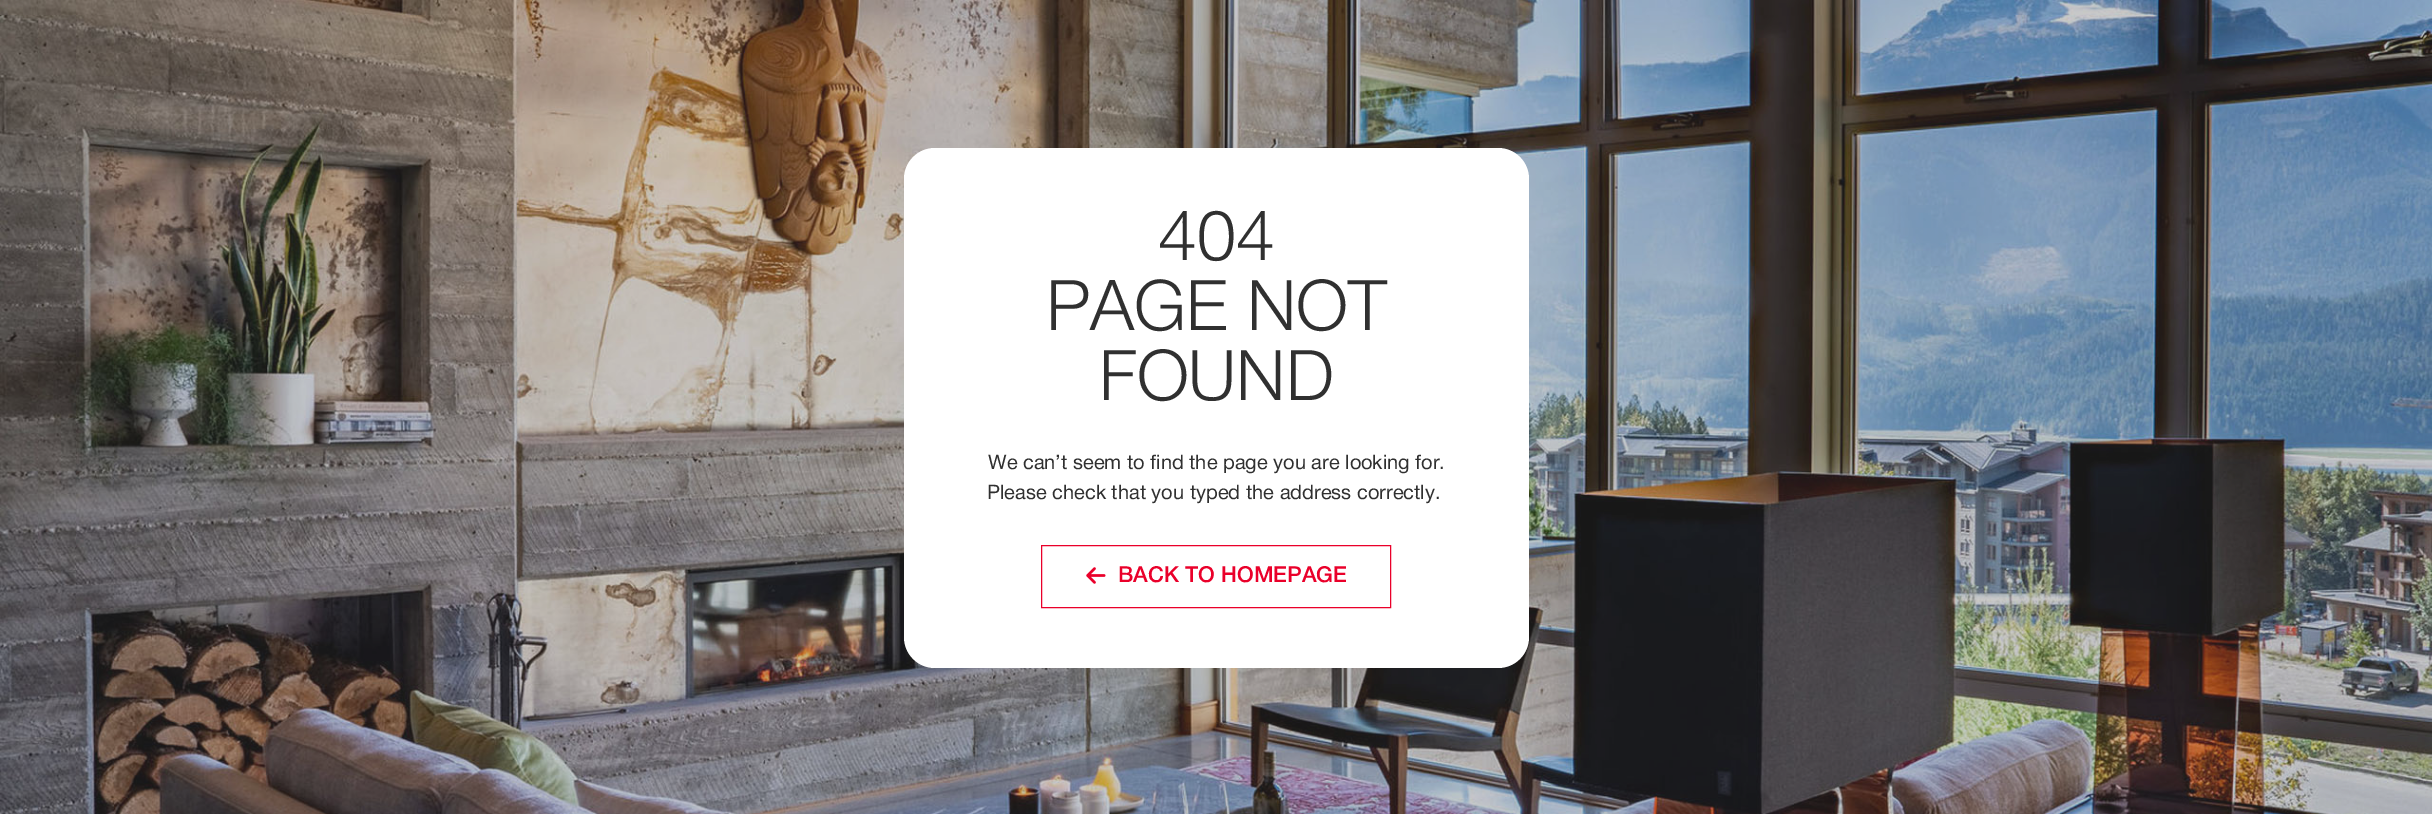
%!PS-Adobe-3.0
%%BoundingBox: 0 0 2432 814
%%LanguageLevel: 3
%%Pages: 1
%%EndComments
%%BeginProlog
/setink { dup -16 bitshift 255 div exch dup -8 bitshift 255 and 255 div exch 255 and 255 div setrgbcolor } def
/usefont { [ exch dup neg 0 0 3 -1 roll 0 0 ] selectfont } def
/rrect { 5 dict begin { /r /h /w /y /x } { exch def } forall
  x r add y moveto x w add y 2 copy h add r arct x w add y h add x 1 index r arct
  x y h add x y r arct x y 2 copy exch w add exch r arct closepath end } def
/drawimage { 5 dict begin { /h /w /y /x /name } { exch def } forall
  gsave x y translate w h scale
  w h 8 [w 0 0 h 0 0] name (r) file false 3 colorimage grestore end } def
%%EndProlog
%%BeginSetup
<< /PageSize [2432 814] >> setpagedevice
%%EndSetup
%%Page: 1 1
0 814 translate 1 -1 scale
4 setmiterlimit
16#FFFFFF setink
0 0 2432 814 rectfill
(img1.raw) 0 0 2432 814 drawimage
904 148 625 520 31 rrect fill
/HelveticaNeue-Light 70 usefont
16#303030 setink
[
    [(404) 1158 260]
    [(PAGE NOT) 1046 330]
    [(FOUND) 1099 400]
] { aload pop moveto show } forall
/HelveticaNeue-Regular 20 usefont
988 469 moveto (We can’t seem to find the page you are looking for.) show
987 499 moveto (Please check that you typed the address correctly.) show
16#EA002A setink
1041.5 545.5 349 62 rectstroke
(img2.raw) 1086 567 20 17 drawimage
/HelveticaNeue-Medium 22 usefont
1118 582 moveto (BACK TO HOMEPAGE) show
showpage
%%EOF
